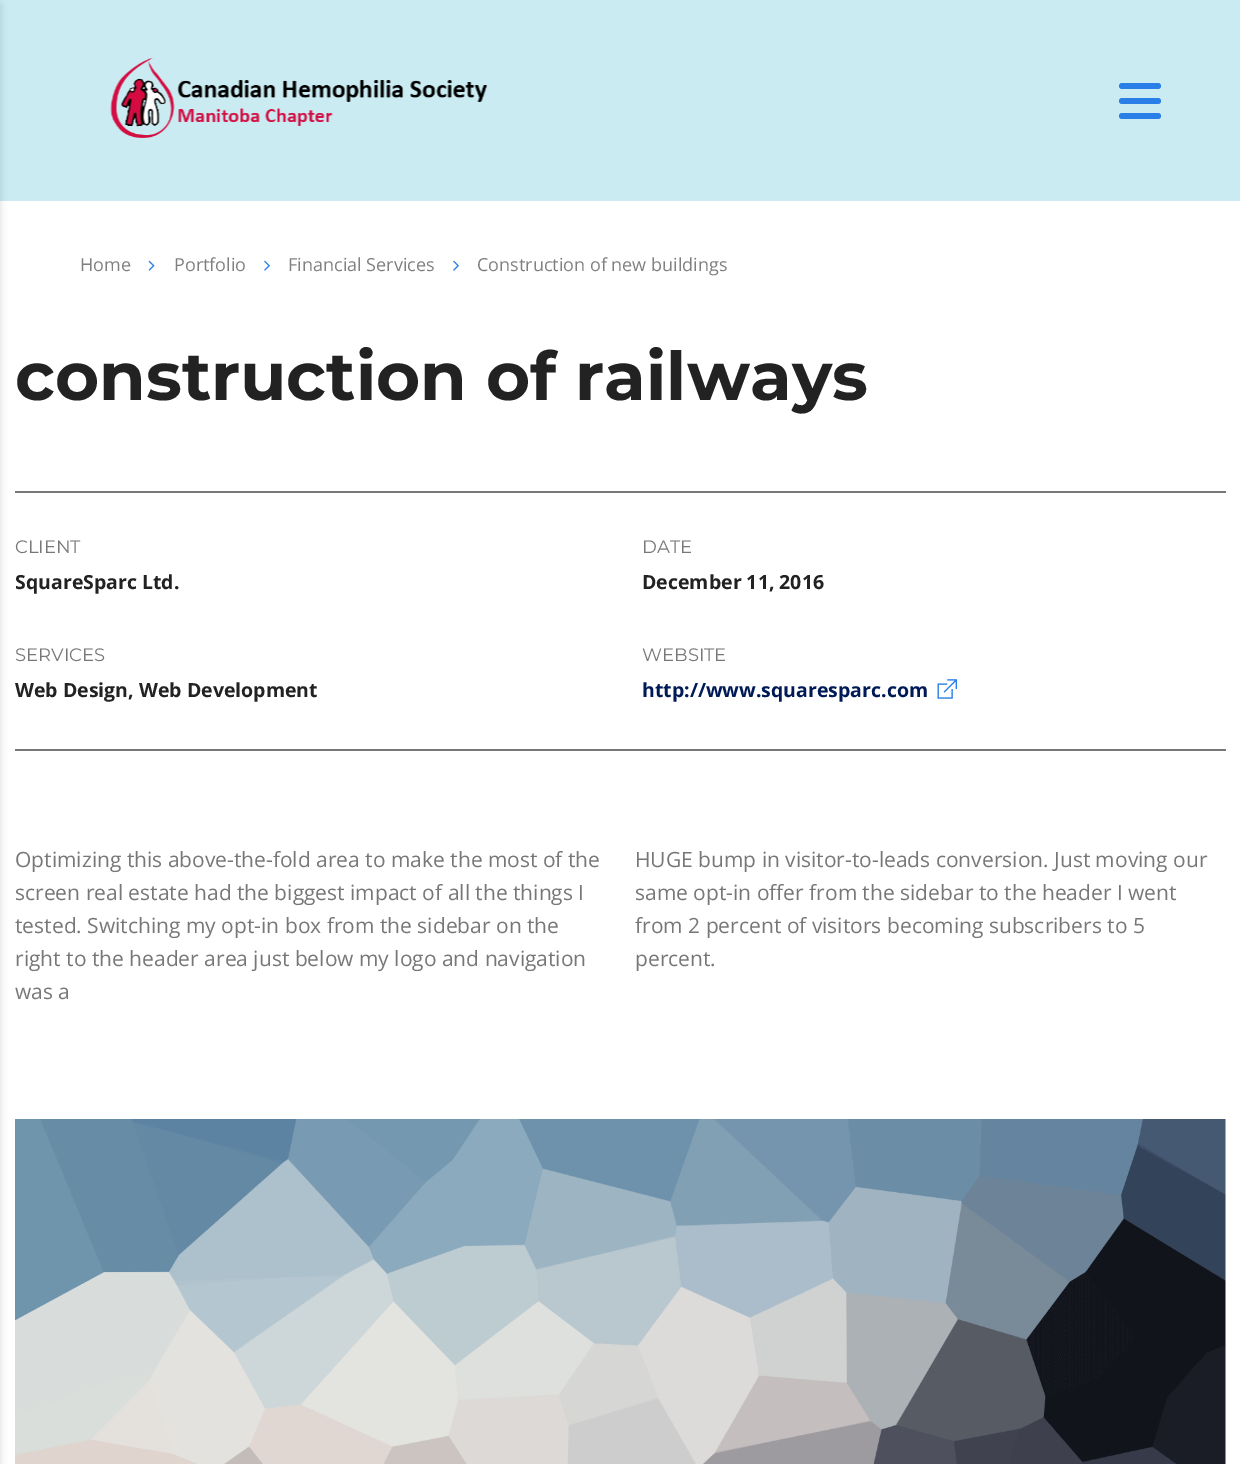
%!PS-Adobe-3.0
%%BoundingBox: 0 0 1240 1464
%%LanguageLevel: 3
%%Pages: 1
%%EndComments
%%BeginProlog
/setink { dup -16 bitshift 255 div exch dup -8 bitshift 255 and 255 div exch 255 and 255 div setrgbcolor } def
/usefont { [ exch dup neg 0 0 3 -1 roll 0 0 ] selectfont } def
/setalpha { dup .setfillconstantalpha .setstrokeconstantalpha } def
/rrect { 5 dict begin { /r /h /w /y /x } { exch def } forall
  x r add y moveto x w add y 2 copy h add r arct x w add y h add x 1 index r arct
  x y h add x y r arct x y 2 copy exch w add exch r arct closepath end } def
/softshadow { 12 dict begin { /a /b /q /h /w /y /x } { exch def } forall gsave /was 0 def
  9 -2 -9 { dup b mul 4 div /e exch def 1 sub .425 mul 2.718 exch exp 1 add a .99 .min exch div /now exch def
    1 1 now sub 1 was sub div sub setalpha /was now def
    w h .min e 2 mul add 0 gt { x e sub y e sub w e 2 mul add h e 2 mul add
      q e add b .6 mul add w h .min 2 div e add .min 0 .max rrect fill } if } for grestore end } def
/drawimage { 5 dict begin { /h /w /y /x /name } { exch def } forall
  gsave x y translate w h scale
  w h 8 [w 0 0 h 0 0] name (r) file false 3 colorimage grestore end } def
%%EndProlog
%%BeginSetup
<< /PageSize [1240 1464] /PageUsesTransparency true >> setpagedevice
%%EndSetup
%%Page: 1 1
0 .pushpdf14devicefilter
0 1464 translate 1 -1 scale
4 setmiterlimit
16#FFFFFF setink
0 0 1240 1464 rectfill
16#CAEBF2 setink
0 0 1240 201 rectfill
(img1.raw) 110 58 378 80 drawimage
16#297EE8 setink
1119 83 42 6 3 rrect fill
1119 98 42 6 3 rrect fill
1119 113 42 6 3 rrect fill
16#000000 setink
-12 5 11 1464 0 4 0.2 softshadow
/OpenSans-Regular 18 usefont
16#808080 setink
80 271 moveto (Home) show
(img2.raw) 148 260 7 11 drawimage
174 271 moveto (Portfolio) show
(img3.raw) 264 260 6 11 drawimage
288 271 moveto (Financial Services) show
(img3.raw) 453 260 6 11 drawimage
477 271 moveto (Construction of new buildings) show
/Montserrat-Bold 67.5 usefont
16#222222 setink
15 400 moveto (construction of railways) show
16#777777 setink
15 491 1211 2 rectfill
15 749 1211 2 rectfill
/Montserrat-Regular 18 usefont
15 553 moveto (CLIENT) show
/OpenSans-Bold 19.5 usefont
16#222222 setink
15 589 moveto (SquareSparc Ltd.) show
/Montserrat-Regular 18 usefont
16#777777 setink
642 553 moveto (DATE) show
/OpenSans-Bold 19.5 usefont
16#222222 setink
642 589 moveto (December 11, 2016) show
/Montserrat-Regular 18 usefont
16#777777 setink
15 661 moveto (SERVICES) show
/OpenSans-Bold 19.5 usefont
16#222222 setink
15 697 moveto (Web Design, Web Development) show
/Montserrat-Regular 18 usefont
16#777777 setink
642 661 moveto (WEBSITE) show
/OpenSans-Bold 19.5 usefont
16#001A57 setink
642 697 moveto (http://www.squaresparc.com) show
(img4.raw) 937 679 20 20 drawimage
/OpenSans-Regular 21 usefont
16#777777 setink
[
    [(Optimizing this above-the-fold area to make the most of the) 15 867]
    [(screen real estate had the biggest impact of all the things I) 15 900]
    [(tested. Switching my opt-in box from the sidebar on the) 15 933]
    [(right to the header area just below my logo and navigation) 15 966]
    [(was a) 15 999]
    [(HUGE bump in visitor-to-leads conversion. Just moving our) 635 867]
    [(same opt-in offer from the sidebar to the header I went) 635 900]
    [(from 2 percent of visitors becoming subscribers to 5) 635 933]
    [(percent.) 635 966]
] { aload pop moveto show } forall
(img5.raw) 15 1119 1211 345 drawimage
.poppdf14devicefilter showpage
%%EOF
